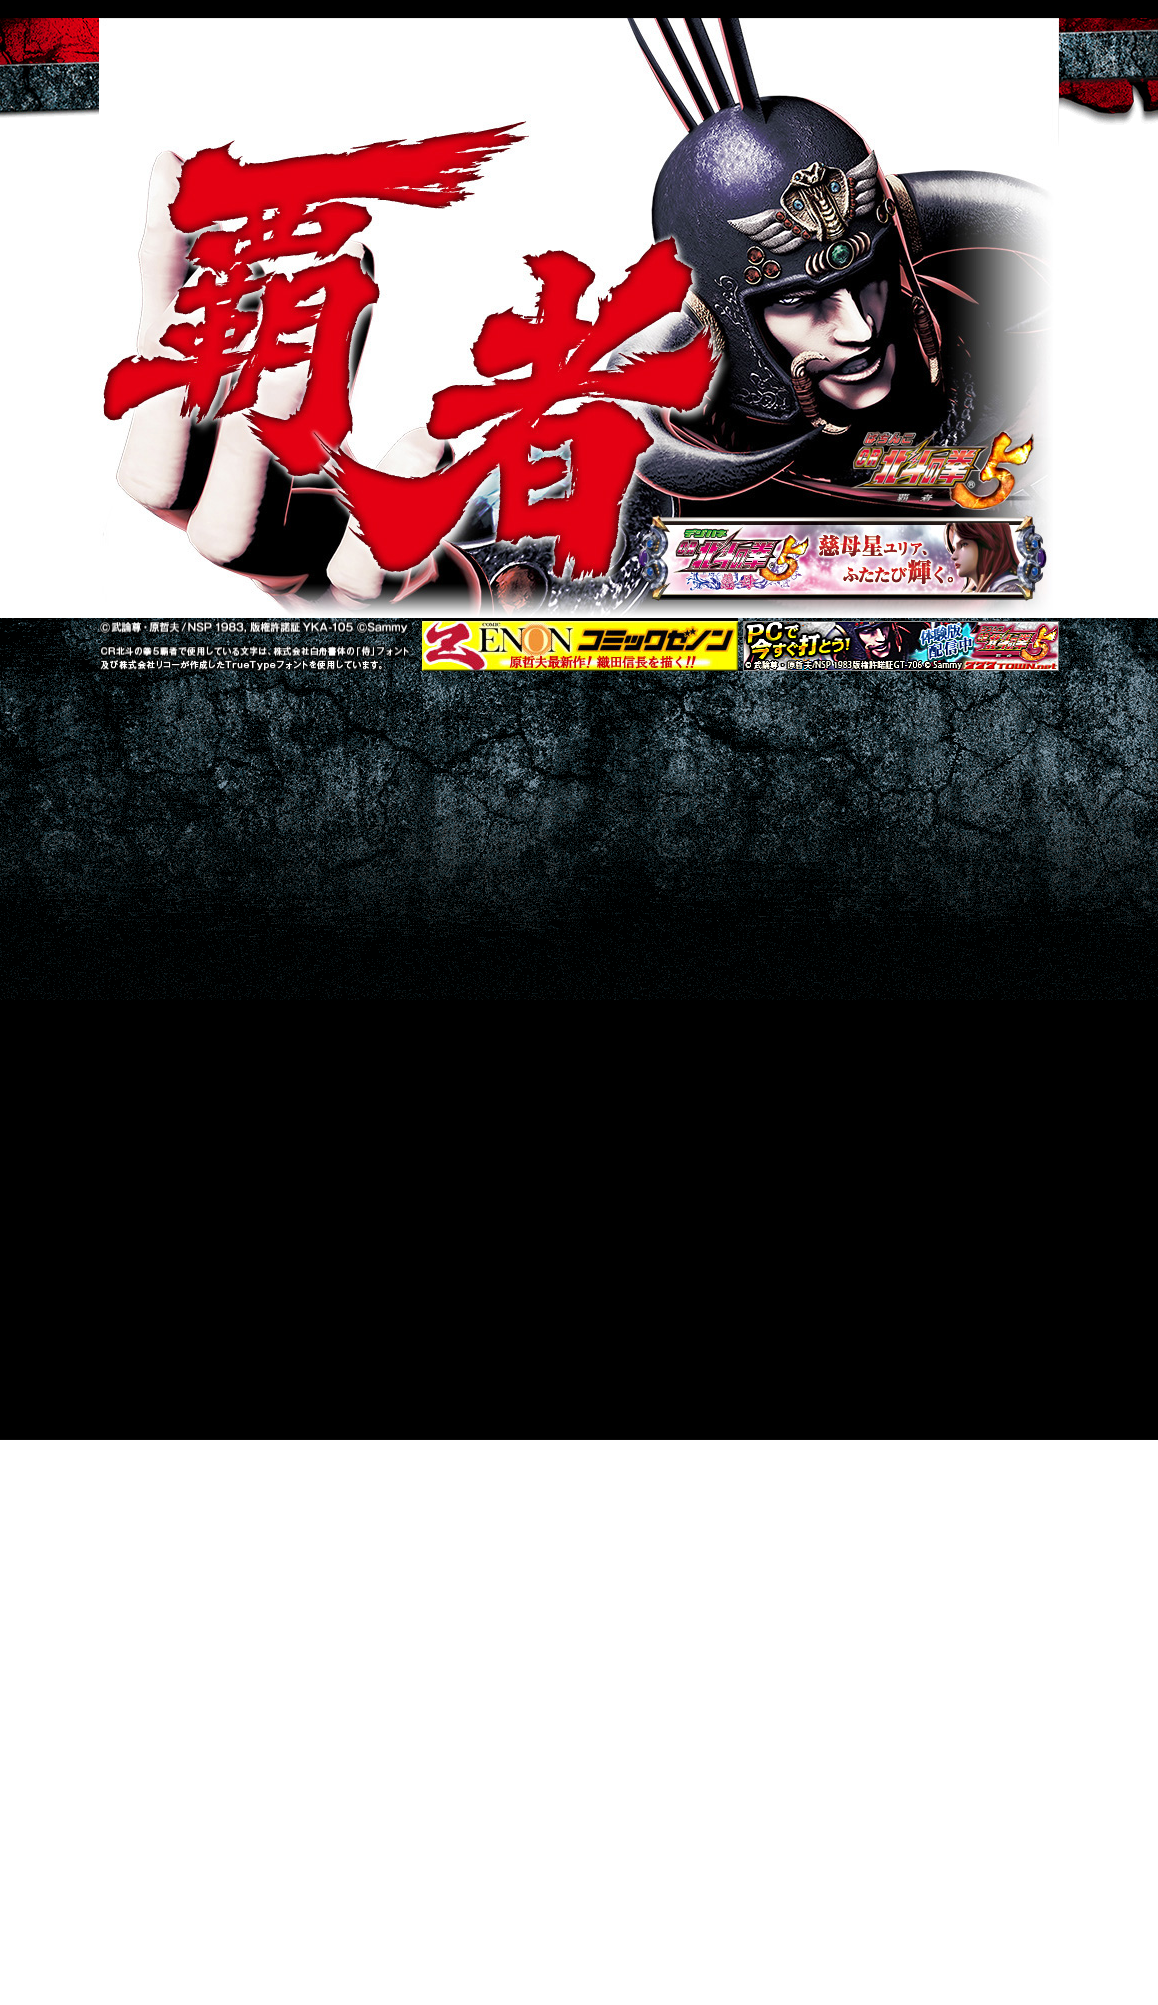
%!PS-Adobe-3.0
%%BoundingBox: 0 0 1158 2005
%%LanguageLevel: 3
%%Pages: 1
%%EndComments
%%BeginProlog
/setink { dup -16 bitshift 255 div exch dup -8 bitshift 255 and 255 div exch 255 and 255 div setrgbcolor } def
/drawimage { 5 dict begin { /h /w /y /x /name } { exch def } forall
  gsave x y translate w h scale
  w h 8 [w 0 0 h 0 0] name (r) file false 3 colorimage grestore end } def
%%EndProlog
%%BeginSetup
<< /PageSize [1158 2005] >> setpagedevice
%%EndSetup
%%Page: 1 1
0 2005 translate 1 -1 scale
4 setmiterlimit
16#FFFFFF setink
0 0 1158 2005 rectfill
(img1.raw) 0 0 1158 1440 drawimage
(img2.raw) 0 18 1158 600 drawimage
(img3.raw) 99 18 960 600 drawimage
(img4.raw) 99 620 313 54 drawimage
(img5.raw) 422 618 316 53 drawimage
(img6.raw) 743 621 316 50 drawimage
showpage
%%EOF
